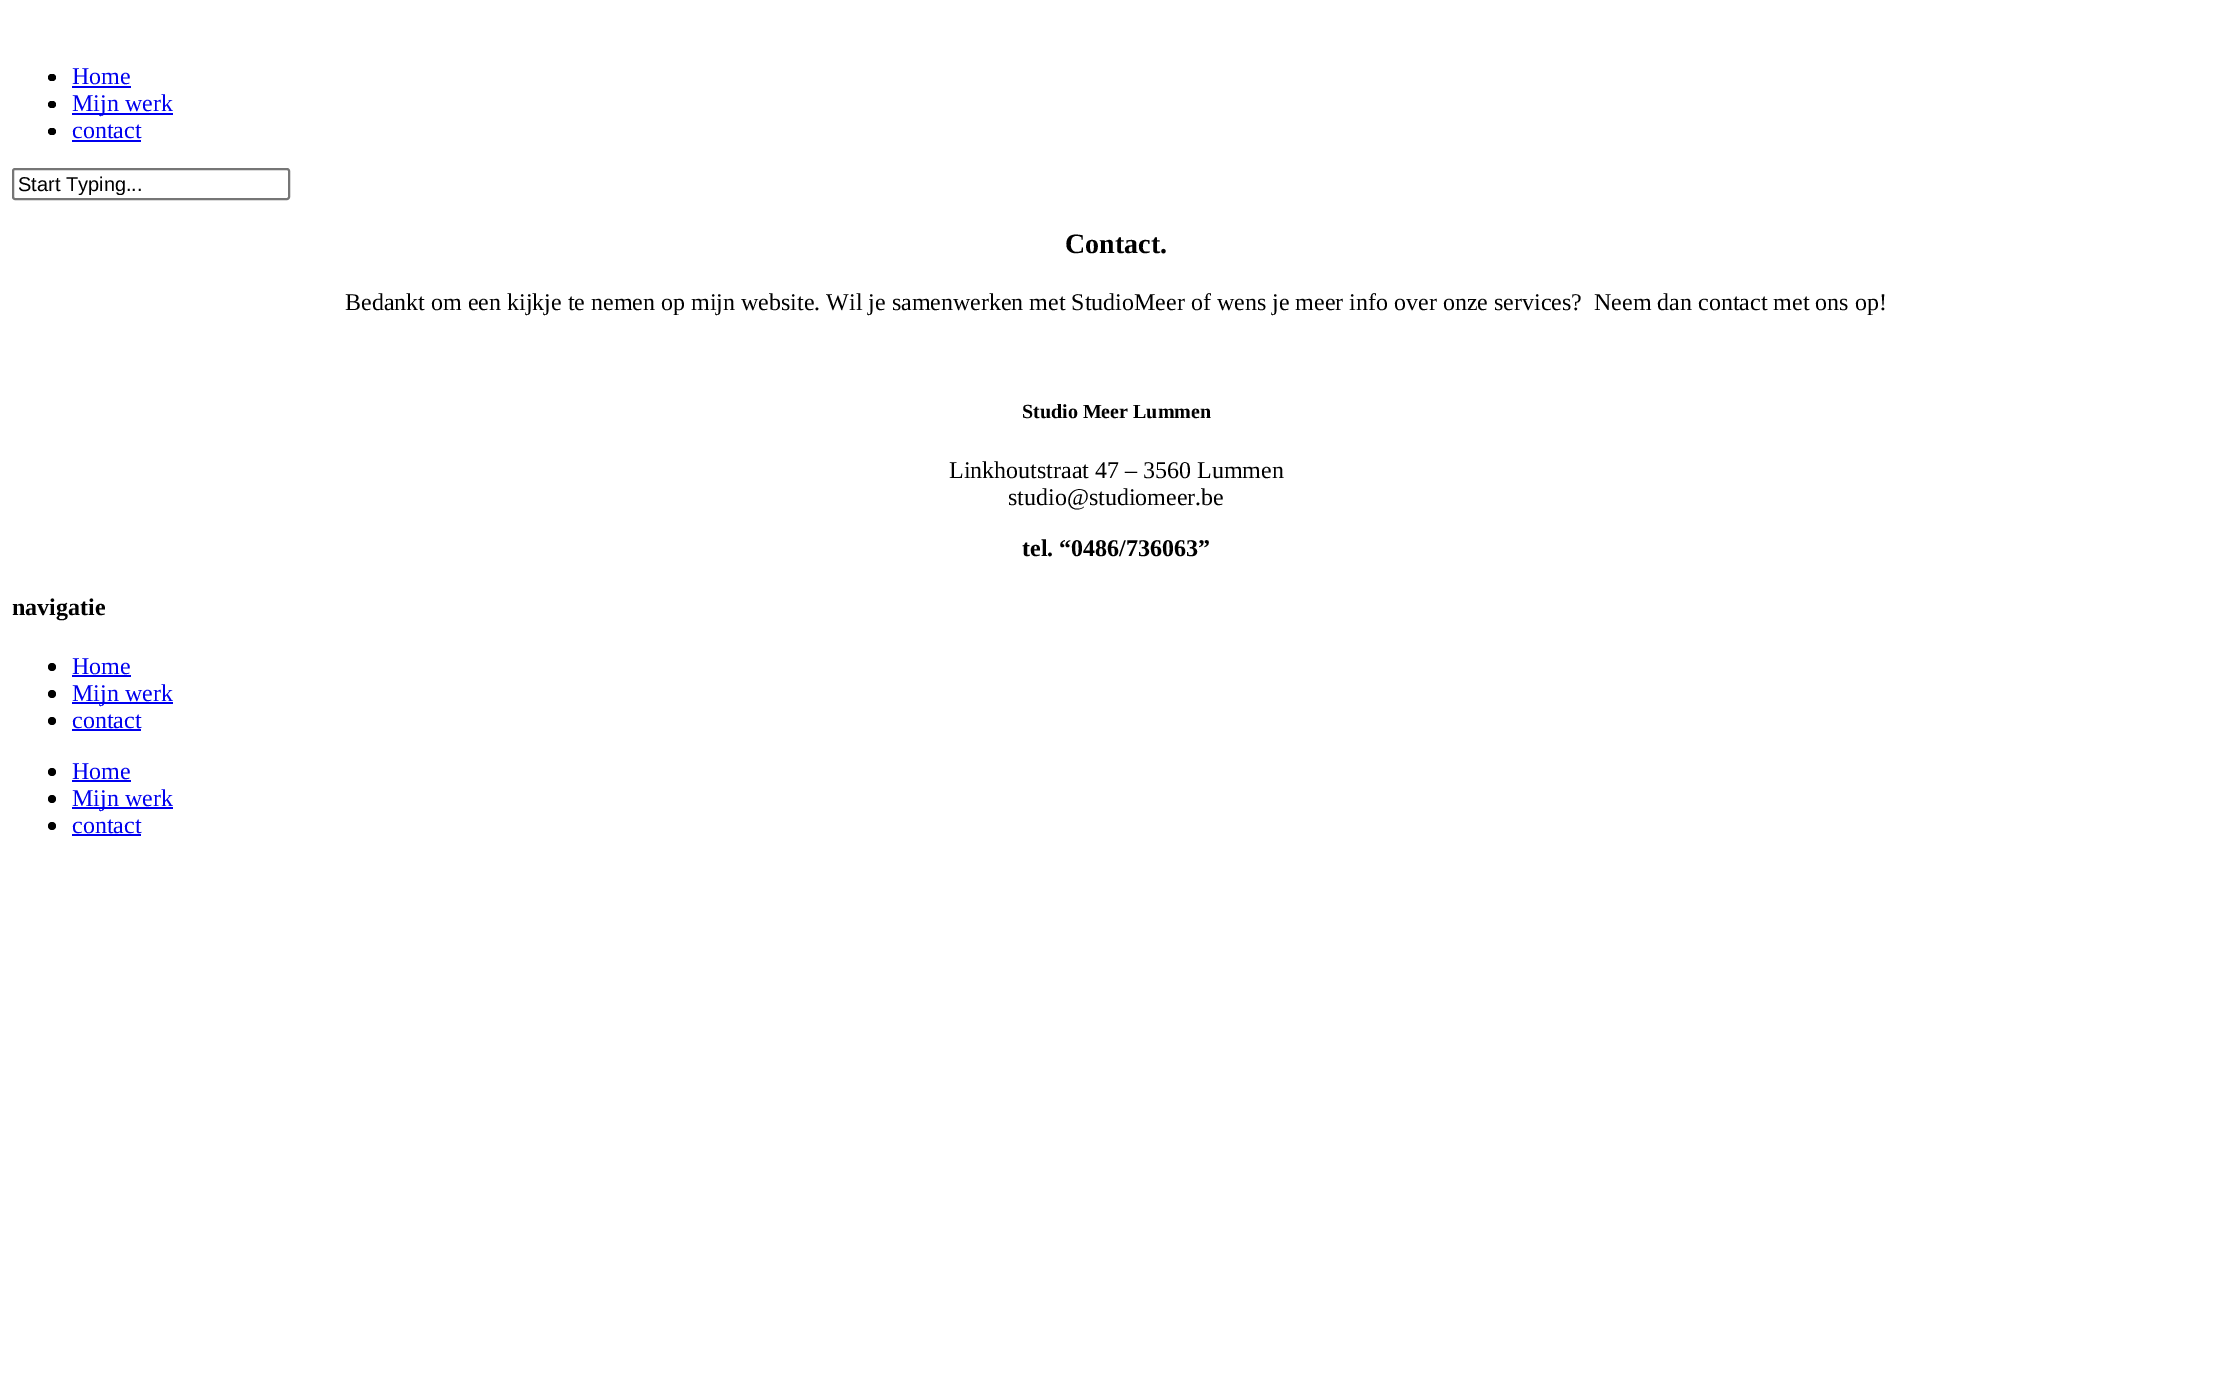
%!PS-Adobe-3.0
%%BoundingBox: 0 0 2231 1380
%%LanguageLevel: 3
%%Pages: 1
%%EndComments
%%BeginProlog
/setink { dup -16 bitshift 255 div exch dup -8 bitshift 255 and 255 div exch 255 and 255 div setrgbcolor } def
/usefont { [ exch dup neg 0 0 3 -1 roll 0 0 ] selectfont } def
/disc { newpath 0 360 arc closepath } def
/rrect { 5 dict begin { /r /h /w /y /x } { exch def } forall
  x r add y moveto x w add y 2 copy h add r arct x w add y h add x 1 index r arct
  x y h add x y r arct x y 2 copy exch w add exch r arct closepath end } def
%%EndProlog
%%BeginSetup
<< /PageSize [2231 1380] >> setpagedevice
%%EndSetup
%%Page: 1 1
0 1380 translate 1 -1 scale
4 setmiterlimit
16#FFFFFF setink
0 0 2231 1380 rectfill
16#000000 setink
48 74 8 7 3.5 rrect fill
/LiberationSerif-Regular 24 usefont
16#0000EE setink
72 84 moveto (Home) show
72 86 59 2 rectfill
16#000000 setink
48 101 8 7 3.5 rrect fill
16#0000EE setink
72 113 101 2 rectfill
72 111 moveto (Mijn werk) show
16#000000 setink
48 128 8 7 3.5 rrect fill
16#0000EE setink
72 138 moveto (contact) show
72 140 69 2 rectfill
16#767676 setink
2 setlinewidth
13 169 276 30 2 rrect stroke
gsave
18 173 266 22 rectclip
/LiberationSans-Regular 20 usefont
16#000000 setink
18 191 moveto (Start Typing...) show
grestore
/LiberationSerif-Bold 28 usefont
16#000000 setink
1065 253 moveto (Contact.) show
/LiberationSerif-Regular 24 usefont
345 310 moveto (Bedankt om een kijkje te nemen op mijn website. Wil je samenwerken met StudioMeer of wens je meer info over onze services?  Neem dan contact met ons op!) show
/LiberationSerif-Bold 20 usefont
1022 418 moveto (Studio Meer Lummen) show
/LiberationSerif-Regular 24 usefont
949 478 moveto (Linkhoutstraat 47 – 3560 Lummen) show
1008 505 moveto (studio@studiomeer.be) show
/LiberationSerif-Bold 24 usefont
1022 556 moveto (tel. “0486/736063”) show
12 615 moveto (navigatie) show
52 667 4 disc fill
/LiberationSerif-Regular 24 usefont
16#0000EE setink
72 674 moveto (Home) show
72 675 59 2 rectfill
16#000000 setink
52 694 4 disc fill
16#0000EE setink
72 702 101 2 rectfill
72 701 moveto (Mijn werk) show
16#000000 setink
52 721 4 disc fill
16#0000EE setink
72 728 moveto (contact) show
72 729 69 2 rectfill
16#000000 setink
52 772 4 disc fill
16#0000EE setink
72 779 moveto (Home) show
72 780 59 2 rectfill
16#000000 setink
52 799 4 disc fill
16#0000EE setink
72 807 101 2 rectfill
72 806 moveto (Mijn werk) show
16#000000 setink
52 826 4 disc fill
16#0000EE setink
72 833 moveto (contact) show
72 834 69 2 rectfill
showpage
%%EOF
